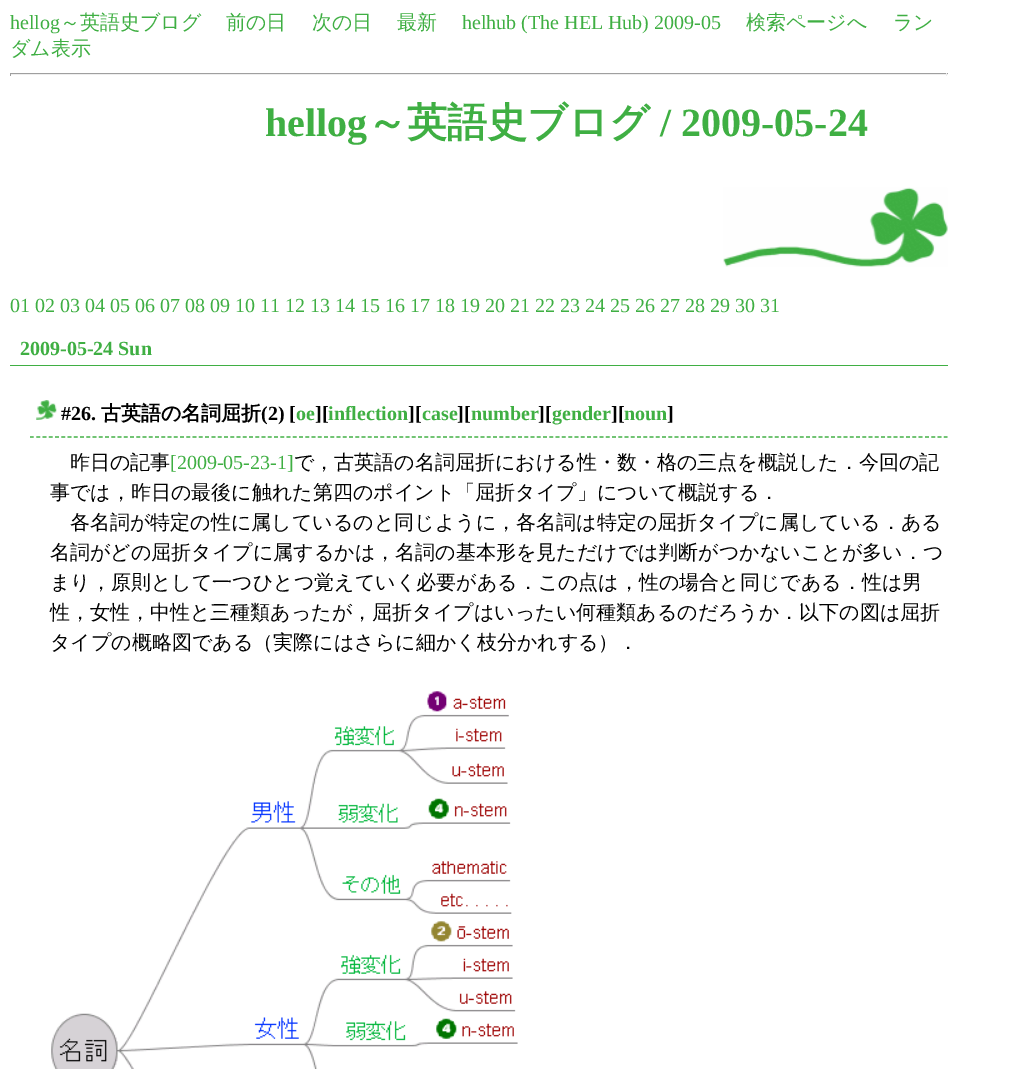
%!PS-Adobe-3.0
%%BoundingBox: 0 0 1030 1069
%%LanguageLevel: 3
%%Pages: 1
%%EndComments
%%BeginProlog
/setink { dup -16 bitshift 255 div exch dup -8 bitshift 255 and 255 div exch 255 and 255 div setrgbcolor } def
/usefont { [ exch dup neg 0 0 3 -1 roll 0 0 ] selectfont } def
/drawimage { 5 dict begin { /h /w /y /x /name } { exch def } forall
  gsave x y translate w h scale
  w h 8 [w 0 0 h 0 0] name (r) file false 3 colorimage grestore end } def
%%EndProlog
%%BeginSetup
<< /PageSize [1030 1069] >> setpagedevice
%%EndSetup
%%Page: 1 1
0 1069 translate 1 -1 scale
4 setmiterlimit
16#FFFFFF setink
0 0 1030 1069 rectfill
/LiberationSerif-Regular 20 usefont
16#3FAF43 setink
10 29 moveto (hellog) show
/WenQuanYiZenHei-Medium 20 usefont
[
    [(～英語史ブログ) 60 29]
    [(前の日) 226 29]
    [(次の日) 312 29]
    [(最新) 397 29]
] { aload pop moveto show } forall
/LiberationSerif-Regular 20 usefont
462 29 moveto (helhub \(The HEL Hub\) 2009-05) show
/WenQuanYiZenHei-Medium 20 usefont
[
    [(検索ページへ) 746 29]
    [(ラン) 893 29]
    [(ダム表示) 10 55]
] { aload pop moveto show } forall
[
    [10 73 938 1 16#9F9F9F]
    [946 73 1 3 16#EEEEEE]
    [10 74 938 1 16#EEEEEE]
    [10 73 1 3 16#9F9F9F]
] { aload pop setink rectfill } forall
(img1.raw) 723 187 225 80 drawimage
/LiberationSerif-Bold 40 usefont
16#3FAF43 setink
265 136 moveto (hellog) show
/WenQuanYiZenHei-Bold 40 usefont
367 136 moveto (～英語史ブログ) show
/LiberationSerif-Bold 40 usefont
660 136 moveto (/ 2009-05-24) show
/LiberationSerif-Regular 20 usefont
10 312 moveto (01 02 03 04 05 06 07 08 09 10 11 12 13 14 15 16 17 18 19 20 21 22 23 24 25 26 27 28 29 30 31) show
10 365 938 1 rectfill
/LiberationSerif-Bold 20 usefont
20 355 moveto (2009-05-24 Sun) show
1.2 setlinewidth
[3.75 2.51] 0 setdash
30 437 moveto 947.5 437 lineto stroke
(img2.raw) 36 400 21 20 drawimage
16#000000 setink
61 420 moveto (#26.) show
/WenQuanYiZenHei-Bold 20 usefont
101 420 moveto (古英語の名詞屈折) show
/LiberationSerif-Bold 20 usefont
261 420 moveto (\(2\) [) show
16#3FAF43 setink
296 420 moveto (oe) show
16#000000 setink
315 420 moveto (][) show
16#3FAF43 setink
328 420 moveto (inflection) show
16#000000 setink
408 420 moveto (][) show
16#3FAF43 setink
422 420 moveto (case) show
16#000000 setink
457 420 moveto (][) show
16#3FAF43 setink
471 420 moveto (number) show
16#000000 setink
538 420 moveto (][) show
16#3FAF43 setink
552 420 moveto (gender) show
16#000000 setink
611 420 moveto (][) show
16#3FAF43 setink
624 420 moveto (noun) show
16#000000 setink
667 420 moveto (]) show
/WenQuanYiZenHei-Medium 20 usefont
70 469 moveto (昨日の記事) show
/LiberationSerif-Regular 20 usefont
16#3FAF43 setink
170 469 moveto ([2009-05-23-1]) show
/WenQuanYiZenHei-Medium 20 usefont
16#000000 setink
[
    [(で，古英語の名詞屈折における性・数・格の三点を概説した．今回の記) 294 469]
    [(事では，昨日の最後に触れた第四のポイント「屈折タイプ」について概説する．) 50 499]
    [(各名詞が特定の性に属しているのと同じように，各名詞は特定の屈折タイプに属している．ある) 70 529]
    [(名詞がどの屈折タイプに属するかは，名詞の基本形を見ただけでは判断がつかないことが多い．つ) 50 559]
    [(まり，原則として一つひとつ覚えていく必要がある．この点は，性の場合と同じである．性は男) 50 589]
    [(性，女性，中性と三種類あったが，屈折タイプはいったい何種類あるのだろうか．以下の図は屈折) 50 619]
    [(タイプの概略図である（実際にはさらに細かく枝分かれする）．) 50 649]
] { aload pop moveto show } forall
(img3.raw) 51 691 467 378 drawimage
showpage
%%EOF
